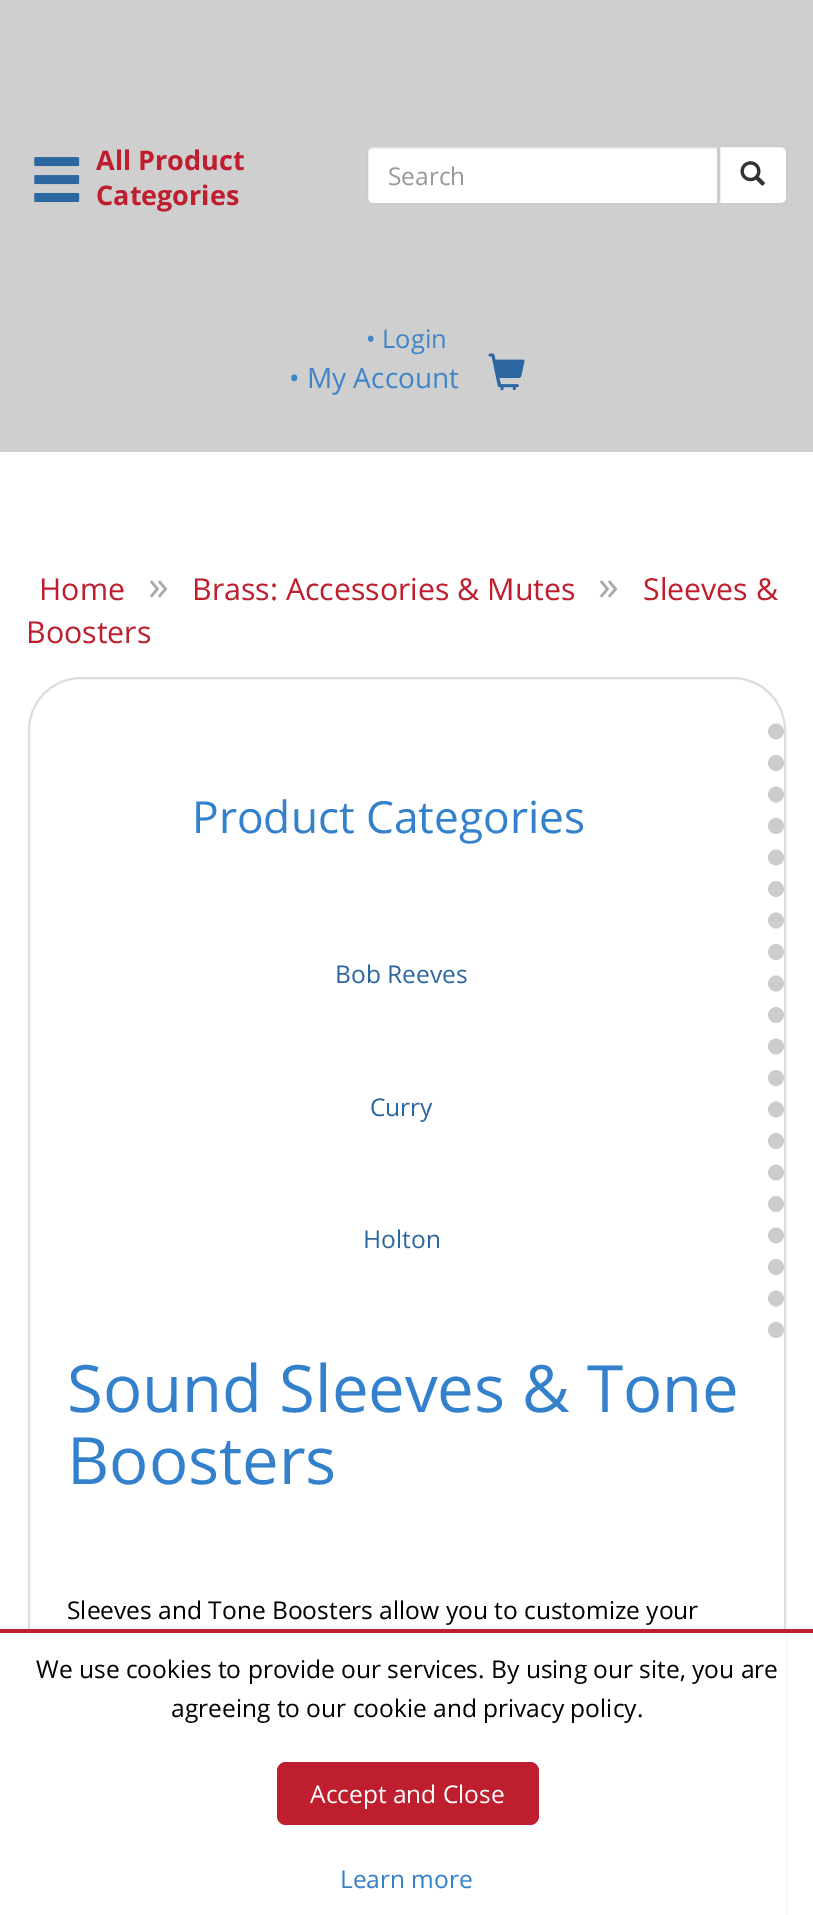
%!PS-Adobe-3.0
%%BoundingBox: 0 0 813 1915
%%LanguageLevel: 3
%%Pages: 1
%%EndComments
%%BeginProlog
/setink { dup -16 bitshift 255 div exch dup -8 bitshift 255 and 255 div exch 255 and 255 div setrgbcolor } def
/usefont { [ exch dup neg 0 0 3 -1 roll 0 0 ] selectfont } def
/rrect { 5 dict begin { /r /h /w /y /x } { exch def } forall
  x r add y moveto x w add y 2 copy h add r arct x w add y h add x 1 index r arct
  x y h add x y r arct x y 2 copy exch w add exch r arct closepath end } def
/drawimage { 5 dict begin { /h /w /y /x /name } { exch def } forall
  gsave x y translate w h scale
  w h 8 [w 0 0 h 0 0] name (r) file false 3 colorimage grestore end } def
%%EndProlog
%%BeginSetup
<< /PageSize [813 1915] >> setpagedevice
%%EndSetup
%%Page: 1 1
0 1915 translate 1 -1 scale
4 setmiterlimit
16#FFFFFF setink
0 0 813 1915 rectfill
16#CFCFCF setink
0 0 813 452 rectfill
(img1.raw) 34 157 46 45 drawimage
/OpenSans-Bold 27 usefont
16#BF1E2E setink
96 170 moveto (All Product) show
96 205 moveto (Categories) show
16#FFFFFF setink
373 145 moveto 719 145 lineto 719 205 lineto 373 205 lineto 369 205 366 202 366 198 curveto 366 152 lineto 366 148 369 145 373 145 curveto closepath fill
16#ECECEC setink
373 149 moveto 718 149 lineto 718 147 lineto 373 147 lineto 369 147 368 151 368 154 curveto 368 151 370 149 373 149 curveto closepath fill
16#CCCCCC setink
2 setlinewidth
373 146 moveto 718 146 lineto 718 204 lineto 373 204 lineto 369.5 204 367 201.5 367 198 curveto 367 152 lineto 367 148.5 369.5 146 373 146 curveto closepath stroke
/OpenSans-Regular 24.5 usefont
16#999999 setink
388 185 moveto (Search) show
16#FFFFFF setink
719 146 moveto 781 146 lineto 784.5 146 787 148.5 787 152 curveto 787 198 lineto 787 201.5 784.5 204 781 204 curveto 719 204 lineto closepath gsave fill grestore
16#CCCCCC setink
stroke
(img2.raw) 740 161 25 25 drawimage
/OpenSans-Regular 25.5 usefont
16#3F84C9 setink
366 348 moveto (• Login) show
/OpenSans-Regular 28 usefont
289 388 moveto (• My Account) show
(img3.raw) 488 353 37 38 drawimage
/OpenSans-Regular 30.3 usefont
16#BF1E2E setink
39 600 moveto (Home) show
/OpenSans-Regular 42 usefont
16#AAAAAA setink
148 600 moveto (») show
/OpenSans-Regular 30.3 usefont
16#BF1E2E setink
192 600 moveto (Brass: Accessories & Mutes) show
/OpenSans-Regular 42 usefont
16#AAAAAA setink
598 600 moveto (») show
/OpenSans-Regular 30.3 usefont
16#BF1E2E setink
643 600 moveto (Sleeves &) show
26 643 moveto (Boosters) show
16#DDDDDD setink
29 678 756 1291 52 rrect stroke
16#CCCCCC setink
15.8 setlinewidth
1 setlinecap
[0 31.5] 0 setdash
776 731.5 moveto 776 1351 lineto stroke
/OpenSans-Regular 44.25 usefont
16#3380CC setink
192 833 moveto (Product Categories) show
/OpenSans-Regular 24.5 usefont
16#2C67A1 setink
[
    [(Bob Reeves) 335 983]
    [(Curry) 370 1116]
    [(Holton) 363 1248]
] { aload pop moveto show } forall
/OpenSans-Regular 65.25 usefont
16#3380CC setink
67 1412 moveto (Sound Sleeves & Tone) show
67 1484 moveto (Boosters) show
/OpenSans-Regular 24.5 usefont
16#000000 setink
67 1619 moveto (Sleeves and Tone Boosters allow you to customize your) show
16#FFFFFF setink
28 1633 758 282 rectfill
16#BF1E2E setink
0 1629 813 4 rectfill
16#000000 setink
36 1678 moveto (We use cookies to provide our services. By using our site, you are) show
171 1717 moveto (agreeing to our cookie and privacy policy.) show
16#BF1E2E setink
277 1762 262 63 9 rrect fill
16#FFFFFF setink
310 1803 moveto (Accept and Close) show
16#3380CC setink
340 1888 moveto (Learn more) show
showpage
%%EOF
